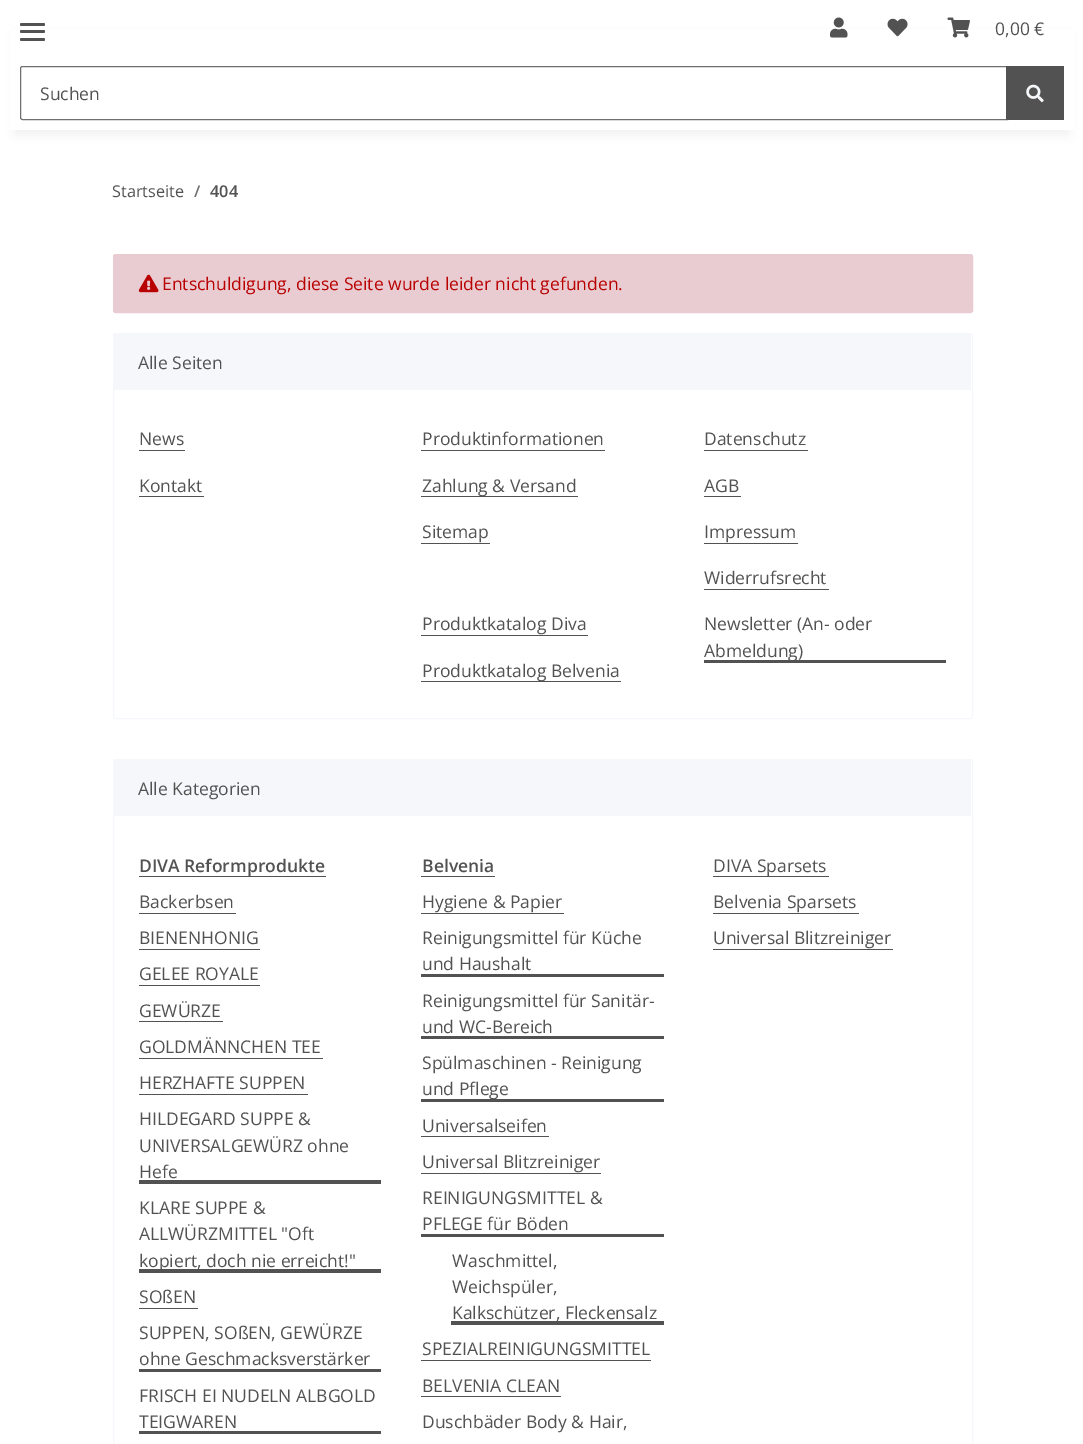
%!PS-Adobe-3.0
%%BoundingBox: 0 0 1083 1444
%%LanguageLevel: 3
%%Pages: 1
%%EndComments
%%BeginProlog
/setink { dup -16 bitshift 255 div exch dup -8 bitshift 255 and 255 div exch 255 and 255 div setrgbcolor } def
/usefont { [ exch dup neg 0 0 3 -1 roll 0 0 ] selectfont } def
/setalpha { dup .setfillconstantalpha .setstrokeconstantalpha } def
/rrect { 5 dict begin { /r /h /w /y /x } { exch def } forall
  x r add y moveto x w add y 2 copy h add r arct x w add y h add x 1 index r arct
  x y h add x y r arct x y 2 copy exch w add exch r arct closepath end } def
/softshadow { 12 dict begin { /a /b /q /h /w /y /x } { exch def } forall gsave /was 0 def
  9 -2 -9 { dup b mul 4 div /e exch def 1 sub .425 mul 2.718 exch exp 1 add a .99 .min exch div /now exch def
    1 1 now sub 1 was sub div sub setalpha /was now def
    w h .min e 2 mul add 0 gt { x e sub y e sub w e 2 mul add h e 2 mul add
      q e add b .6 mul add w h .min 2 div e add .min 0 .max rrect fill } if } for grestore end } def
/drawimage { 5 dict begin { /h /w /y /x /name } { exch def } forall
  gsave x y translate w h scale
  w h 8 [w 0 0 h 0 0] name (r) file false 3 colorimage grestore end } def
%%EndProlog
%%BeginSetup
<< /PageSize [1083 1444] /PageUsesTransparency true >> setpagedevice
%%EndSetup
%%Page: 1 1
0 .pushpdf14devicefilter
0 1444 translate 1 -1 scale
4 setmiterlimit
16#FFFFFF setink
0 0 1083 1444 rectfill
16#000000 setink
15 35 1054 100 0 5.5 0.06 softshadow
16#FFFFFF setink
10 30 1064 100 rectfill
16#525252 setink
20 30 25 3 1.5 rrect fill
20 23 25 3 1.5 rrect fill
20 38 25 3 1.5 rrect fill
(img1.raw) 830 17 18 21 drawimage
(img2.raw) 887 18 21 19 drawimage
(img3.raw) 947 17 23 21 drawimage
/OpenSans-Regular 17.5 usefont
995 35 moveto (0,00 €) show
16#707070 setink
22.5 66.5 moveto 1007.5 66.5 lineto 1007.5 119.5 lineto 22.5 119.5 lineto 21.5 119.5 20.5 118.5 20.5 117.5 curveto 20.5 68.5 lineto 20.5 67.5 21.5 66.5 22.5 66.5 curveto closepath stroke
16#525252 setink
40 100 moveto (Suchen) show
1006 66 58 54 rectfill
(img4.raw) 1026 84 18 19 drawimage
/OpenSans-Regular 16.25 usefont
112 197 moveto (Startseite) show
/OpenSans-SemiBold 16.25 usefont
16#707070 setink
194 197 moveto (/) show
16#525252 setink
210 197 moveto (404) show
16#E8CCD2 setink
113.5 254.5 859 58 2 rrect gsave fill grestore
stroke
(img5.raw) 138 274 21 19 drawimage
/OpenSans-Regular 17.5 usefont
16#B90000 setink
162 290 moveto (Entschuldigung, diese Seite wurde leider nicht gefunden.) show
16#F5F7FA setink
113.5 333.5 859 385 2 rrect stroke
115 334 moveto 970 334 lineto 970.5 334 971 334.5 971 335 curveto 971 390 lineto 114 390 lineto 114 335 lineto 114 334.5 114.5 334 115 334 curveto closepath fill
16#525252 setink
138 369 moveto (Alle Seiten) show
139 445 moveto (News) show
139 450 46 1 rectfill
139 492 moveto (Kontakt) show
139 496 65 1 rectfill
422 445 moveto (Produktinformationen) show
421 450 184 1 rectfill
422 492 moveto (Zahlung & Versand) show
421 496 157 1 rectfill
422 538 moveto (Sitemap) show
421 543 69 1 rectfill
704 445 moveto (Datenschutz) show
704 450 104 1 rectfill
704 492 moveto (AGB) show
704 496 37 1 rectfill
704 538 moveto (Impressum) show
704 543 94 1 rectfill
704 584 moveto (Widerrufsrecht) show
704 589 125 1 rectfill
422 630 moveto (Produktkatalog Diva) show
421 635 167 1 rectfill
422 677 moveto (Produktkatalog Belvenia) show
421 681 200 1 rectfill
704 630 moveto (Newsletter \(An- oder) show
704 657 moveto (Abmeldung\)) show
704 660 242 3 rectfill
16#F5F7FA setink
113.5 759.5 859 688 2 rrect stroke
115 760 moveto 970 760 lineto 970.5 760 971 760.5 971 761 curveto 971 816 lineto 114 816 lineto 114 761 lineto 114 760.5 114.5 760 115 760 curveto closepath fill
16#525252 setink
138 795 moveto (Alle Kategorien) show
/OpenSans-SemiBold 17.5 usefont
139 872 moveto (DIVA Reformprodukte) show
139 876 187 1 rectfill
/OpenSans-Regular 17.5 usefont
139 908 moveto (Backerbsen) show
139 913 97 1 rectfill
139 944 moveto (BIENENHONIG) show
139 949 121 1 rectfill
139 980 moveto (GELEE ROYALE) show
139 985 121 1 rectfill
139 1017 moveto (GEWÜRZE) show
139 1021 84 1 rectfill
139 1053 moveto (GOLDMÄNNCHEN TEE) show
139 1058 184 1 rectfill
139 1089 moveto (HERZHAFTE SUPPEN) show
139 1094 169 1 rectfill
[
    [(HILDEGARD SUPPE &) 139 1125]
    [(UNIVERSALGEWÜRZ ohne) 139 1152]
    [(Hefe) 139 1178]
] { aload pop moveto show } forall
139 1180 242 4 rectfill
[
    [(KLARE SUPPE &) 139 1214]
    [(ALLWÜRZMITTEL "Oft) 139 1240]
    [(kopiert, doch nie erreicht!") 139 1267]
] { aload pop moveto show } forall
139 1269 242 4 rectfill
139 1303 moveto (SOßEN) show
139 1308 59 1 rectfill
139 1339 moveto (SUPPEN, SOßEN, GEWÜRZE) show
139 1365 moveto (ohne Geschmacksverstärker) show
139 1369 242 3 rectfill
139 1402 moveto (FRISCH EI NUDELN ALBGOLD) show
139 1428 moveto (TEIGWAREN) show
139 1431 242 3 rectfill
/OpenSans-SemiBold 17.5 usefont
422 872 moveto (Belvenia) show
421 876 74 1 rectfill
/OpenSans-Regular 17.5 usefont
422 908 moveto (Hygiene & Papier) show
421 913 143 1 rectfill
422 944 moveto (Reinigungsmittel für Küche) show
422 970 moveto (und Haushalt) show
421 974 243 3 rectfill
422 1007 moveto (Reinigungsmittel für Sanitär-) show
422 1033 moveto (und WC-Bereich) show
421 1036 243 3 rectfill
422 1069 moveto (Spülmaschinen - Reinigung) show
422 1095 moveto (und Pflege) show
421 1099 243 3 rectfill
422 1132 moveto (Universalseifen) show
421 1136 128 1 rectfill
422 1168 moveto (Universal Blitzreiniger) show
421 1173 180 1 rectfill
422 1204 moveto (REINIGUNGSMITTEL &) show
422 1230 moveto (PFLEGE für Böden) show
421 1234 243 3 rectfill
[
    [(Waschmittel,) 452 1267]
    [(Weichspüler,) 452 1293]
    [(Kalkschützer, Fleckensalz) 452 1319]
] { aload pop moveto show } forall
451 1321 213 4 rectfill
422 1355 moveto (SPEZIALREINIGUNGSMITTEL) show
421 1360 230 1 rectfill
422 1392 moveto (BELVENIA CLEAN) show
421 1396 140 1 rectfill
422 1428 moveto (Duschbäder Body & Hair,) show
713 872 moveto (DIVA Sparsets) show
713 876 116 1 rectfill
713 908 moveto (Belvenia Sparsets) show
713 913 146 1 rectfill
713 944 moveto (Universal Blitzreiniger) show
713 949 180 1 rectfill
.poppdf14devicefilter showpage
%%EOF
